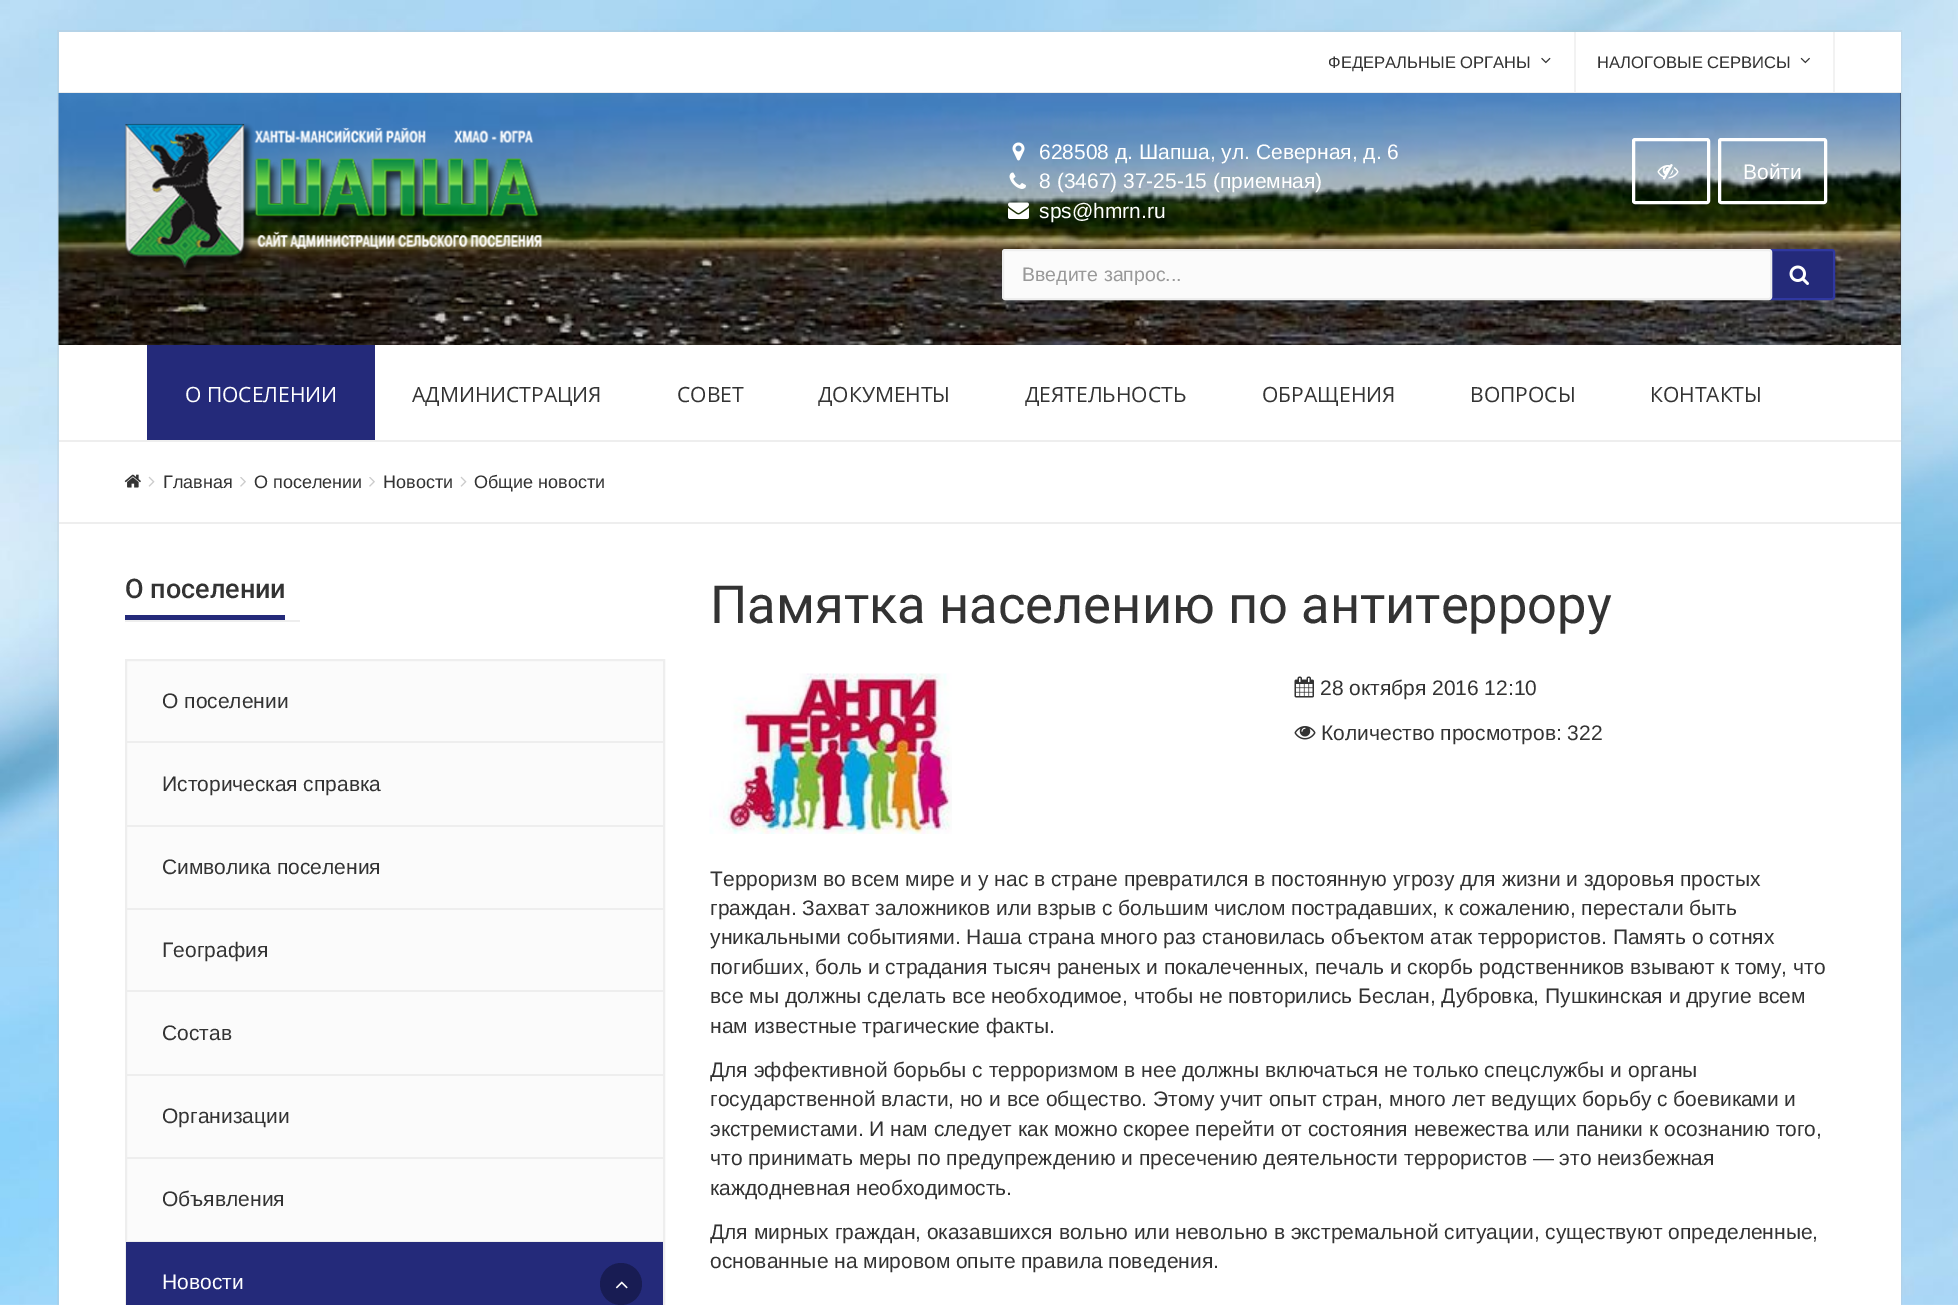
%!PS-Adobe-3.0
%%BoundingBox: 0 0 1958 1305
%%LanguageLevel: 3
%%Pages: 1
%%EndComments
%%BeginProlog
/setink { dup -16 bitshift 255 div exch dup -8 bitshift 255 and 255 div exch 255 and 255 div setrgbcolor } def
/usefont { [ exch dup neg 0 0 3 -1 roll 0 0 ] selectfont } def
/setalpha { dup .setfillconstantalpha .setstrokeconstantalpha } def
/disc { newpath 0 360 arc closepath } def
/rrect { 5 dict begin { /r /h /w /y /x } { exch def } forall
  x r add y moveto x w add y 2 copy h add r arct x w add y h add x 1 index r arct
  x y h add x y r arct x y 2 copy exch w add exch r arct closepath end } def
/drawimage { 5 dict begin { /h /w /y /x /name } { exch def } forall
  gsave x y translate w h scale
  w h 8 [w 0 0 h 0 0] name (r) file false 3 colorimage grestore end } def
%%EndProlog
%%BeginSetup
<< /PageSize [1958 1305] /PageUsesTransparency true >> setpagedevice
%%EndSetup
%%Page: 1 1
0 .pushpdf14devicefilter
0 1305 translate 1 -1 scale
4 setmiterlimit
16#FFFFFF setink
0 0 1958 1305 rectfill
(img1.raw) 0 0 1958 1305 drawimage
0.2 setalpha
16#BBBBBB setink
2 setlinewidth
58 31 1843 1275 rectstroke
1 setalpha
[
    [59 32 1842 60 16#FFFFFF]
    [59 92 1842 1 16#EEEEEE]
    [1574 32 2 60 16#F2F2F2]
] { aload pop setink rectfill } forall
/LiberationSans-Regular 16.6 usefont
16#333333 setink
1328 68 moveto (ФЕДЕРАЛЬНЫЕ ОРГАНЫ) show
(img2.raw) 1541 57 10 7 drawimage
16#F2F2F2 setink
1833 32 2 60 rectfill
16#333333 setink
1597 68 moveto (НАЛОГОВЫЕ СЕРВИСЫ) show
(img3.raw) 1800 57 10 7 drawimage
16#313237 setink
1900 93 1 252 rectfill
(img4.raw) 58 93 1843 252 drawimage
(img5.raw) 124 123 420 150 drawimage
(img6.raw) 1012 142 13 19 drawimage
/LiberationSans-Regular 21 usefont
16#FFFFFF setink
1039 159 moveto (628508 д. Шапша, ул. Северная, д. 6) show
(img7.raw) 1009 172 17 17 drawimage
1039 188 moveto (8 \(3467\) 37-25-15 \(приемная\)) show
(img8.raw) 1008 202 21 17 drawimage
1039 218 moveto (sps@hmrn.ru) show
3 setlinewidth
1633.5 139.5 75 63 1.5 rrect stroke
(img9.raw) 1657 164 22 16 drawimage
1719.5 139.5 106 63 1.5 rrect stroke
1743 179 moveto (Войти) show
16#242A7A setink
1771 250 moveto 1832 250 lineto 1833 250 1834 251 1834 252 curveto 1834 297 lineto 1834 298 1833 299 1832 299 curveto 1771 299 lineto closepath gsave fill grestore
16#3038A1 setink
2 setlinewidth
stroke
16#FBFBFB setink
1003 250 768 49 2 rrect gsave fill grestore
16#EEEEEE setink
stroke
/LiberationSans-Regular 19.5 usefont
16#999999 setink
1022 281 moveto (Введите запрос...) show
(img10.raw) 1789 265 20 20 drawimage
[
    [59 345 1842 95 16#FFFFFF]
    [59 440 1842 2 16#EEEEEE]
    [147 345 228 95 16#242A7A]
] { aload pop setink rectfill } forall
/OpenSans-Regular 21 usefont
16#FFFFFF setink
185 402 moveto (О ПОСЕЛЕНИИ) show
16#333333 setink
[
    [(АДМИНИСТРАЦИЯ) 412 402]
    [(СОВЕТ) 677 402]
    [(ДОКУМЕНТЫ) 818 402]
    [(ДЕЯТЕЛЬНОСТЬ) 1025 402]
    [(ОБРАЩЕНИЯ) 1262 402]
    [(ВОПРОСЫ) 1470 402]
    [(КОНТАКТЫ) 1650 402]
] { aload pop moveto show } forall
16#FFFFFF setink
59 442 1842 80 rectfill
16#EEEEEE setink
59 522 1842 2 rectfill
(img11.raw) 124 474 17 14 drawimage
(img12.raw) 148 476 7 11 drawimage
/LiberationSans-Regular 18 usefont
16#333333 setink
163 488 moveto (Главная) show
(img13.raw) 240 477 6 10 drawimage
254 488 moveto (О поселении) show
(img13.raw) 369 477 6 10 drawimage
383 488 moveto (Новости) show
(img12.raw) 460 476 7 11 drawimage
474 488 moveto (Общие новости) show
16#FFFFFF setink
59 524 1842 781 rectfill
16#EEEEEE setink
125 620 175 2 rectfill
/Roboto-Medium 27 usefont
16#333333 setink
125 598 moveto (О поселении) show
16#242A7A setink
125 615 160 5 rectfill
16#FBFBFB setink
127 661 536 580 rectfill
16#EEEEEE setink
126 660 538 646 rectstroke
126 741 537 2 rectfill
/LiberationSans-Regular 21 usefont
16#333333 setink
162 708 moveto (О поселении) show
16#EEEEEE setink
126 825 537 2 rectfill
16#333333 setink
162 791 moveto (Историческая справка) show
16#EEEEEE setink
126 908 537 2 rectfill
16#333333 setink
162 874 moveto (Символика поселения) show
16#EEEEEE setink
126 990 537 2 rectfill
16#333333 setink
162 957 moveto (География) show
16#EEEEEE setink
126 1074 537 2 rectfill
16#333333 setink
162 1040 moveto (Состав) show
16#EEEEEE setink
126 1157 537 2 rectfill
16#333333 setink
162 1123 moveto (Организации) show
16#EEEEEE setink
126 1241 537 1 rectfill
16#333333 setink
162 1206 moveto (Объявления) show
16#242A7A setink
126 1242 537 63 rectfill
16#FFFFFF setink
162 1289 moveto (Новости) show
16#181C53 setink
621 1284 21 disc fill
(img14.raw) 615 1281 13 8 drawimage
/Roboto-Regular 52.5 usefont
16#333333 setink
710 623 moveto (Памятка населению по антитеррору) show
(img15.raw) 709 673 243 161 drawimage
(img16.raw) 1294 676 20 22 drawimage
/LiberationSans-Regular 21 usefont
1320 695 moveto (28 октября 2016 12:10) show
(img17.raw) 1294 726 22 14 drawimage
[
    [(Количество просмотров: 322) 1321 740]
    [(Терроризм во всем мире и у нас в стране превратился в постоянную угрозу для жизни и здоровья простых) 710 886]
    [(граждан. Захват заложников или взрыв с большим числом пострадавших, к сожалению, перестали быть) 710 915]
    [(уникальными событиями. Наша страна много раз становилась объектом атак террористов. Память о сотнях) 710 944]
    [(погибших, боль и страдания тысяч раненых и покалеченных, печаль и скорбь родственников взывают к тому, что) 710 974]
    [(все мы должны сделать все необходимое, чтобы не повторились Беслан, Дубровка, Пушкинская и другие всем) 710 1003]
    [(нам известные трагические факты.) 710 1033]
    [(Для эффективной борьбы с терроризмом в нее должны включаться не только спецслужбы и органы) 710 1077]
    [(государственной власти, но и все общество. Этому учит опыт стран, много лет ведущих борьбу с боевиками и) 710 1106]
    [(экстремистами. И нам следует как можно скорее перейти от состояния невежества или паники к осознанию того,) 710 1136]
    [(что принимать меры по предупреждению и пресечению деятельности террористов — это неизбежная) 710 1165]
    [(каждодневная необходимость.) 710 1195]
    [(Для мирных граждан, оказавшихся вольно или невольно в экстремальной ситуации, существуют определенные,) 710 1239]
    [(основанные на мировом опыте правила поведения.) 710 1268]
] { aload pop moveto show } forall
.poppdf14devicefilter showpage
%%EOF
